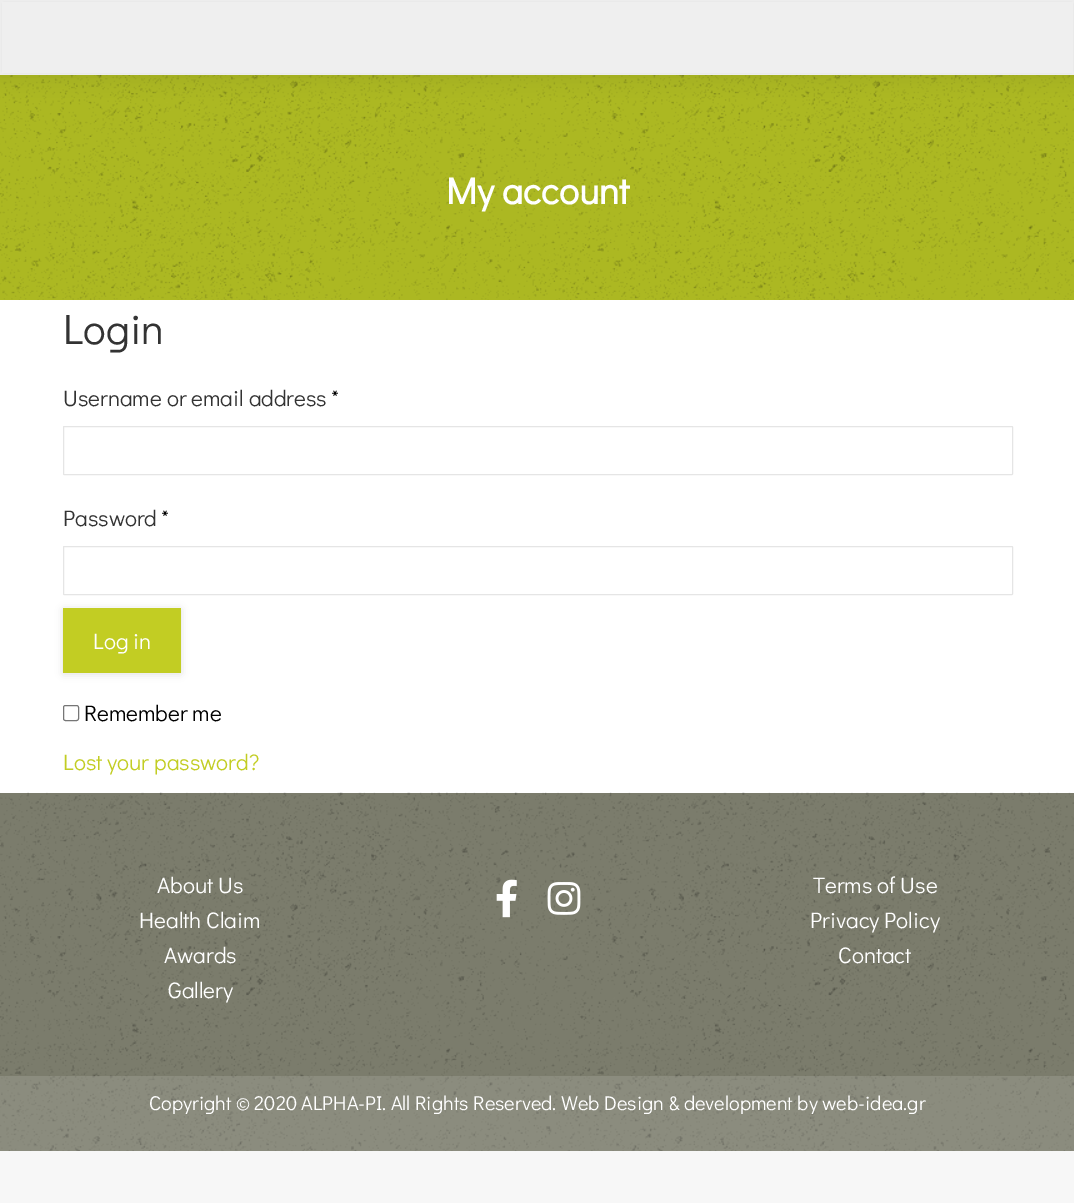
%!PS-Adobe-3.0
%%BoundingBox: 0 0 1074 1203
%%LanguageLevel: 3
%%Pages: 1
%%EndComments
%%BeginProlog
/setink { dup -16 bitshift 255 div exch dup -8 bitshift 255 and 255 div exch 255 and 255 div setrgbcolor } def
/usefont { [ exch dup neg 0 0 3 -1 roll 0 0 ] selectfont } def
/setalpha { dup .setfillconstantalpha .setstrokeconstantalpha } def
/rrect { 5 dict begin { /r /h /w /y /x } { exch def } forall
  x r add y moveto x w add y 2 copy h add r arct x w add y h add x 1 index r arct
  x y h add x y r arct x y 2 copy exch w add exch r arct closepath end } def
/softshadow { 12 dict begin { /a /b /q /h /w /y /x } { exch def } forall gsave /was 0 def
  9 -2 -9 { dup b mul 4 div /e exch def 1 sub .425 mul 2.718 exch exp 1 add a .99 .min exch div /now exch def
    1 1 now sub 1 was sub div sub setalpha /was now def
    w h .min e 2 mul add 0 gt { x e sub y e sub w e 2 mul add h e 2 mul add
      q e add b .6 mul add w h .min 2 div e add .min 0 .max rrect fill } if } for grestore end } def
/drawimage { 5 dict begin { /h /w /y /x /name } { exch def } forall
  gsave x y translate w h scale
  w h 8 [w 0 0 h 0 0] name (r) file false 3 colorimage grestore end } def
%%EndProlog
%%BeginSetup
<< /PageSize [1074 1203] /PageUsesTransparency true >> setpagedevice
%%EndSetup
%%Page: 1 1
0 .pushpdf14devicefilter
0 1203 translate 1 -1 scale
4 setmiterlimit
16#F7F7F7 setink
0 0 1074 1203 rectfill
16#FFFFFF setink
0 300 1074 493 rectfill
16#ACB822 setink
0 75 1074 225 rectfill
(img1.raw) 0 75 1074 225 drawimage
16#000000 setink
-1 -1 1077 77 0 9.5 0.07 softshadow
16#EFEFEF setink
2 2 1071 71 rectfill
/DidactGothic-Bold 37.5 usefont
16#FFFFFF setink
446 204 moveto (My account) show
/DidactGothic-Regular 42.5 usefont
16#333333 setink
63 344 moveto (Login) show
/DidactGothic-Regular 22.5 usefont
63 406 moveto (Username or email address) show
16#000000 setink
331 406 moveto (*) show
16#E5E5E5 setink
63.5 426.5 949 48 0.5 rrect stroke
16#333333 setink
63 526 moveto (Password) show
16#000000 setink
161 526 moveto (*) show
16#E5E5E5 setink
63.5 546.5 949 48 0.5 rrect stroke
16#000000 setink
63 609 118 65 1 4 0.12 softshadow
gsave 63 608 118 65 1 rrect clip newpath
<< /ShadingType 2 /ColorSpace /DeviceRGB /Coords [76 594 168 686] /Extend [true true] /Function << /FunctionType 2 /Domain [0 1] /C0 [0.761 0.804 0.137] /C1 [0.761 0.804 0.137] /N 1 >> >> shfill grestore
16#FFFFFF setink
93 649 moveto (Log in) show
16#767676 setink
63.5 705.5 15 15 2 rrect stroke
16#000000 setink
84 721 moveto (Remember me) show
16#C2CD23 setink
63 770 moveto (Lost your password?) show
16#7B7C6C setink
0 793 1074 358 rectfill
(img2.raw) 0 792 1074 359 drawimage
16#FFFFFF setink
[
    [(About Us) 157 893]
    [(Health Claim) 139 928]
    [(Awards) 164 963]
    [(Gallery) 168 998]
] { aload pop moveto show } forall
(img3.raw) 496 879 21 39 drawimage
(img4.raw) 547 882 34 33 drawimage
[
    [(Terms of Use) 813 893]
    [(Privacy Policy) 810 928]
    [(Contact) 838 963]
] { aload pop moveto show } forall
0.12 setalpha
0 1076 1074 75 rectfill
/DidactGothic-Regular 20 usefont
1 setalpha
149 1110 moveto (Copyright © 2020 ALPHA-PI. All Rights Reserved. Web Design & development by web-idea.gr) show
.poppdf14devicefilter showpage
%%EOF
